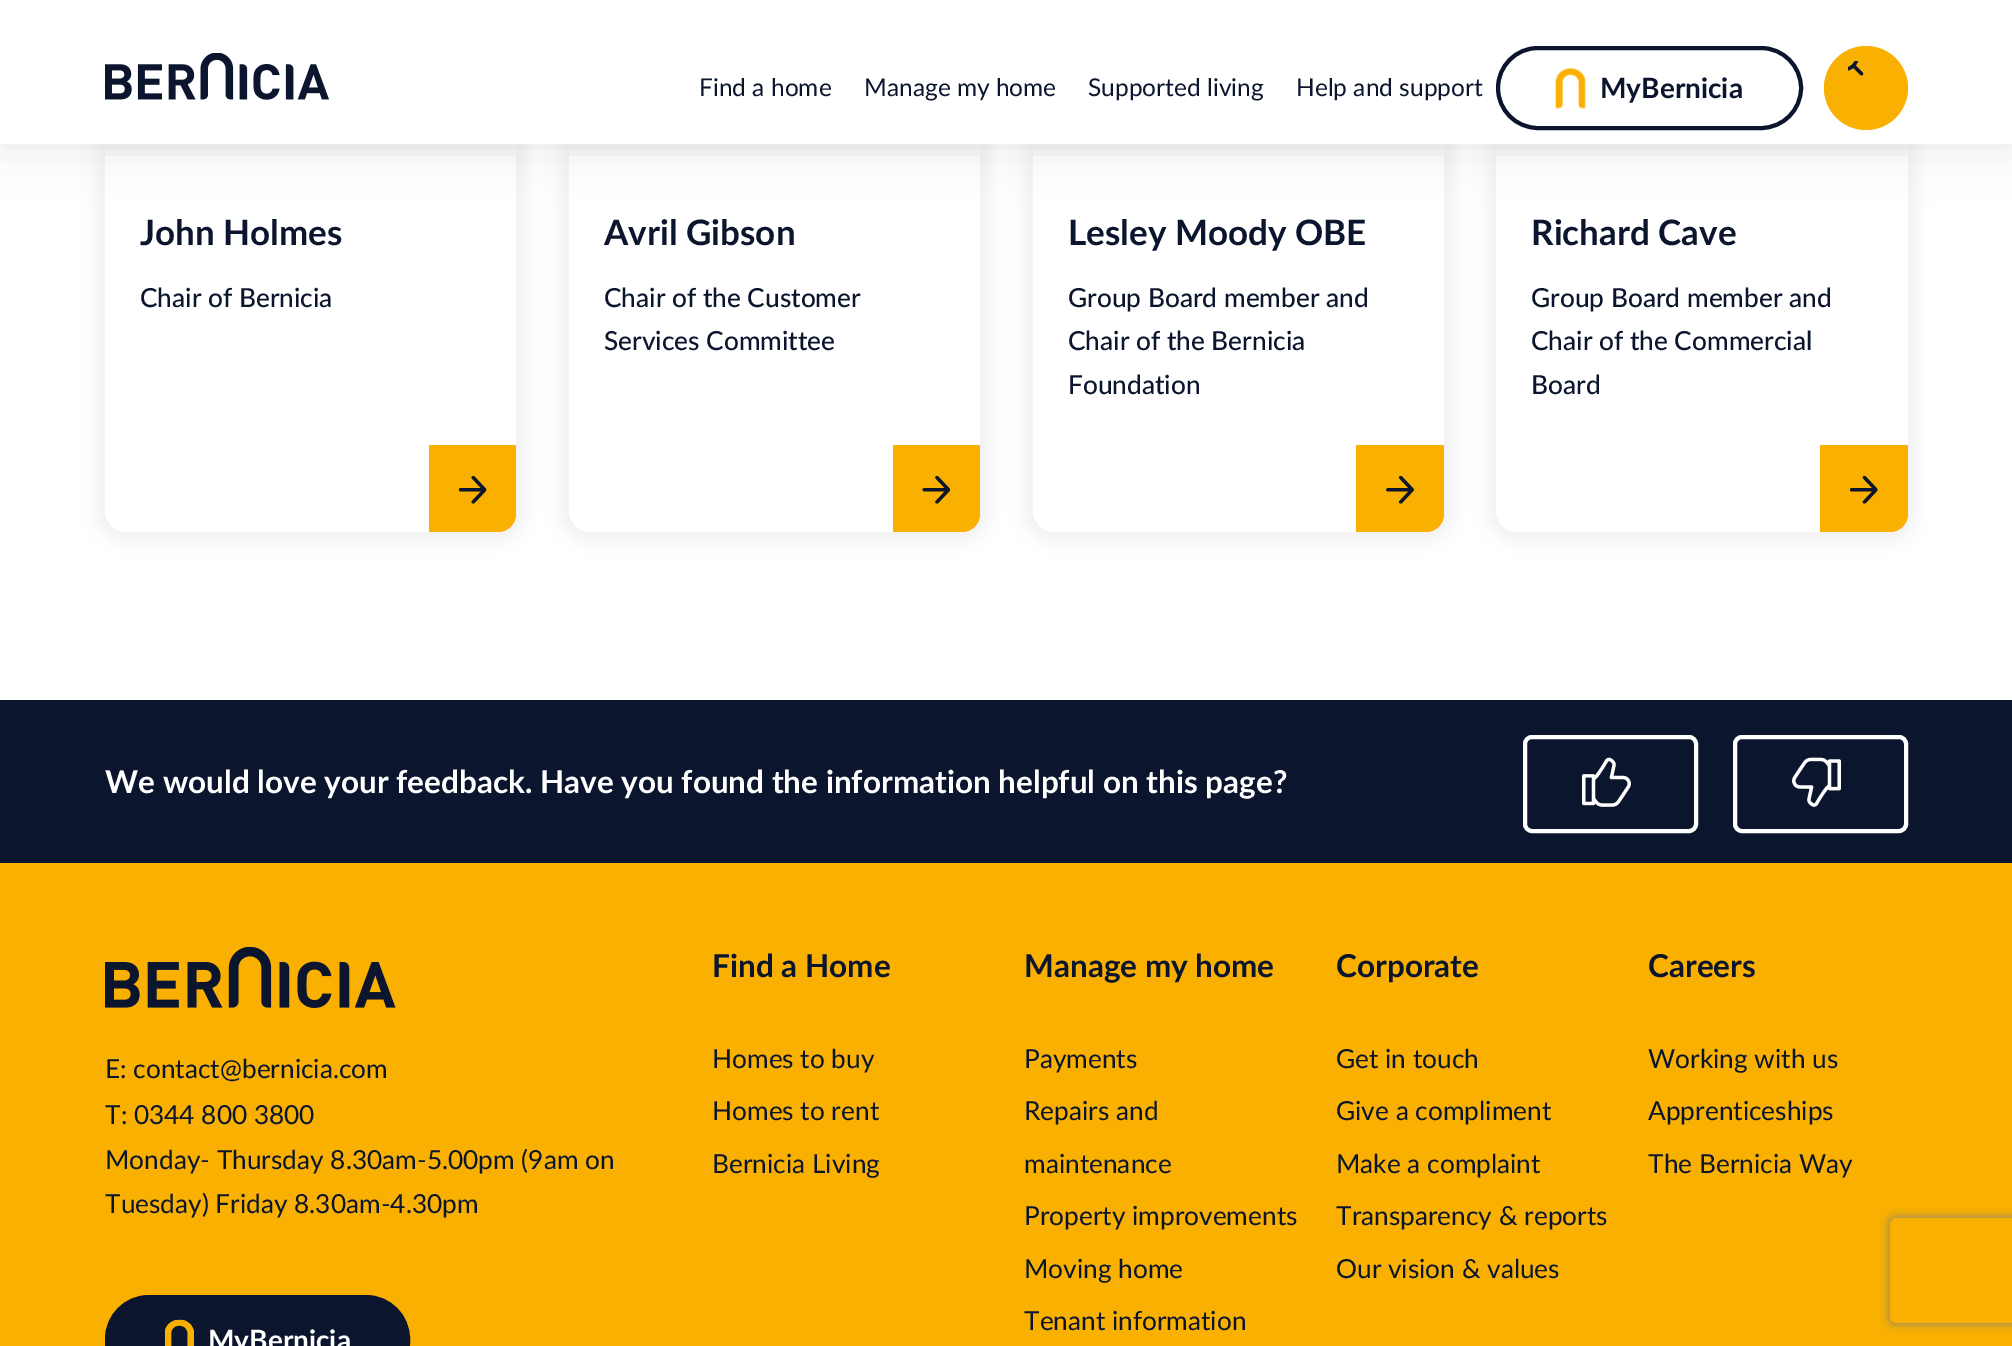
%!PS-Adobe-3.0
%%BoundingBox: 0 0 2012 1346
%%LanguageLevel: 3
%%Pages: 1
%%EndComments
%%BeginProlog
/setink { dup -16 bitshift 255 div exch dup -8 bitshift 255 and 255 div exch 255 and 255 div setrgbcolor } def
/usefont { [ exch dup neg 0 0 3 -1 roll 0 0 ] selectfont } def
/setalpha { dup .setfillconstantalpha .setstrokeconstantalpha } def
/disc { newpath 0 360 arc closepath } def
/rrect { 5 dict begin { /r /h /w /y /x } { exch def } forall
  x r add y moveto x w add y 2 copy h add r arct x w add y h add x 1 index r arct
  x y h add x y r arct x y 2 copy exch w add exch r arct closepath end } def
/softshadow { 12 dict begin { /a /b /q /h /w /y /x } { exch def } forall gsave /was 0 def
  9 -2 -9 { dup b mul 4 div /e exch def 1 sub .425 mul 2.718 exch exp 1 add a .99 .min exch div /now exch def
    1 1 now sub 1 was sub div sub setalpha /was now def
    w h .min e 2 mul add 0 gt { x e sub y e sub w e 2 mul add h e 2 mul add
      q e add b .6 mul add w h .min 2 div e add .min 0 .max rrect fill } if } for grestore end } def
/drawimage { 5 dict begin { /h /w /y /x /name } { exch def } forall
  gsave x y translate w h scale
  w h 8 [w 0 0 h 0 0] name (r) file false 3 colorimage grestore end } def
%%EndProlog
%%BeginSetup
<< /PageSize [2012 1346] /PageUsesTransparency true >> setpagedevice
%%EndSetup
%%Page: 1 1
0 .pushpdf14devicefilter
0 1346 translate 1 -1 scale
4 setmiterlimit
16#FFFFFF setink
0 0 2012 1346 rectfill
gsave
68 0 moveto 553 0 lineto 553 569 lineto 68 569 lineto closepath 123 -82 moveto 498 -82 lineto 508 -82 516 -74 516 -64 curveto 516 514 lineto 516 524 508 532 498 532 curveto 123 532 lineto 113 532 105 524 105 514 curveto 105 -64 lineto 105 -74 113 -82 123 -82 curveto closepath eoclip newpath
16#000000 setink
96 -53 429 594 26 9 0.05 softshadow
grestore
16#F7F7F7 setink
105 144 411 12 rectfill
gsave
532 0 moveto 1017 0 lineto 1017 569 lineto 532 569 lineto closepath 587 -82 moveto 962 -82 lineto 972 -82 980 -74 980 -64 curveto 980 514 lineto 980 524 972 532 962 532 curveto 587 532 lineto 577 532 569 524 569 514 curveto 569 -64 lineto 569 -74 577 -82 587 -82 curveto closepath eoclip newpath
16#000000 setink
560 -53 429 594 26 9 0.05 softshadow
grestore
569 144 411 12 rectfill
gsave
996 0 moveto 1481 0 lineto 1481 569 lineto 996 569 lineto closepath 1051 -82 moveto 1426 -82 lineto 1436 -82 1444 -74 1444 -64 curveto 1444 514 lineto 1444 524 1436 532 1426 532 curveto 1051 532 lineto 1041 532 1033 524 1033 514 curveto 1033 -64 lineto 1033 -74 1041 -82 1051 -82 curveto closepath eoclip newpath
16#000000 setink
1024 -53 429 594 26 9 0.05 softshadow
grestore
1033 144 411 12 rectfill
gsave
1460 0 moveto 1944 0 lineto 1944 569 lineto 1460 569 lineto closepath 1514 -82 moveto 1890 -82 lineto 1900 -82 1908 -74 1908 -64 curveto 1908 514 lineto 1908 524 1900 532 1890 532 curveto 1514 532 lineto 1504 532 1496 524 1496 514 curveto 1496 -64 lineto 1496 -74 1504 -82 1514 -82 curveto closepath eoclip newpath
16#000000 setink
1488 -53 428 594 26 9 0.05 softshadow
grestore
1496 144 412 12 rectfill
16#000000 setink
0 0 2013 144 0 26 0.1 softshadow
16#FFFFFF setink
0 0 2012 144 rectfill
(img1.raw) 105 53 224 47 drawimage
/Lato-Regular 24.5 usefont
16#0B152D setink
[
    [(Find a home) 699 96]
    [(Manage my home) 864 96]
    [(Supported living) 1088 96]
    [(Help and support) 1296 96]
] { aload pop moveto show } forall
4 setlinewidth
1498 48 303 80 40 rrect stroke
(img2.raw) 1555 68 31 41 drawimage
/Lato-Bold 28 usefont
1600 98 moveto (MyBernicia) show
16#F9B000 setink
1866 88 42 disc fill
(img3.raw) 1848 61 16 15 drawimage
/Lato-Bold 35 usefont
16#0B152D setink
140 245 moveto (John Holmes) show
/Lato-Medium 26.25 usefont
140 307 moveto (Chair of Bernicia) show
16#F9B000 setink
429 445 moveto 516 445 lineto 516 514 lineto 516 524 508 532 498 532 curveto 429 532 lineto closepath fill
(img4.raw) 459 476 28 28 drawimage
/Lato-Bold 35 usefont
16#0B152D setink
604 245 moveto (Avril Gibson) show
/Lato-Medium 26.25 usefont
604 307 moveto (Chair of the Customer) show
604 350 moveto (Services Committee) show
16#F9B000 setink
893 445 moveto 980 445 lineto 980 514 lineto 980 524 972 532 962 532 curveto 893 532 lineto closepath fill
(img5.raw) 922 476 28 28 drawimage
/Lato-Bold 35 usefont
16#0B152D setink
1068 245 moveto (Lesley Moody OBE) show
/Lato-Medium 26.25 usefont
[
    [(Group Board member and) 1068 307]
    [(Chair of the Bernicia) 1068 350]
    [(Foundation) 1068 394]
] { aload pop moveto show } forall
16#F9B000 setink
1356 445 moveto 1444 445 lineto 1444 514 lineto 1444 524 1436 532 1426 532 curveto 1356 532 lineto closepath fill
(img6.raw) 1386 476 28 28 drawimage
/Lato-Bold 35 usefont
16#0B152D setink
1531 245 moveto (Richard Cave) show
/Lato-Medium 26.25 usefont
[
    [(Group Board member and) 1531 307]
    [(Chair of the Commercial) 1531 350]
    [(Board) 1531 394]
] { aload pop moveto show } forall
16#F9B000 setink
1820 445 moveto 1908 445 lineto 1908 514 lineto 1908 524 1900 532 1890 532 curveto 1820 532 lineto closepath fill
(img7.raw) 1850 476 28 28 drawimage
16#0B152D setink
0 700 2012 163 rectfill
/Lato-Bold 31.5 usefont
16#FFFFFF setink
105 793 moveto (We would love your feedback. Have you found the information helpful on this page?) show
1525 737 171 94 7 rrect stroke
(img8.raw) 1582 757 49 50 drawimage
1735 737 171 94 7 rrect stroke
(img9.raw) 1792 757 49 50 drawimage
16#F9B000 setink
0 863 2012 483 rectfill
(img10.raw) 105 947 291 61 drawimage
/Lato-Regular 26.25 usefont
16#0B152D setink
[
    [(E: contact@bernicia.com) 105 1078]
    [(T: 0344 800 3800) 105 1124]
    [(Monday- Thursday 8.30am-5.00pm \(9am on) 105 1169]
    [(Tuesday\) Friday 8.30am-4.30pm) 105 1213]
] { aload pop moveto show } forall
107 1297 301 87 42 rrect gsave fill grestore
stroke
(img11.raw) 165 1319 29 27 drawimage
/Lato-Bold 28 usefont
16#FFFFFF setink
208 1350 moveto (MyBernicia) show
/Lato-Bold 31.5 usefont
16#0B152D setink
712 977 moveto (Find a Home) show
/Lato-Regular 26.25 usefont
[
    [(Homes to buy) 712 1068]
    [(Homes to rent) 712 1120]
    [(Bernicia Living) 712 1173]
] { aload pop moveto show } forall
/Lato-Bold 31.5 usefont
1024 977 moveto (Manage my home) show
/Lato-Regular 26.25 usefont
[
    [(Payments) 1024 1068]
    [(Repairs and) 1024 1120]
    [(maintenance) 1024 1173]
    [(Property improvements) 1024 1225]
    [(Moving home) 1024 1278]
    [(Tenant information) 1024 1330]
] { aload pop moveto show } forall
/Lato-Bold 31.5 usefont
1336 977 moveto (Corporate) show
/Lato-Regular 26.25 usefont
[
    [(Get in touch) 1336 1068]
    [(Give a compliment) 1336 1120]
    [(Make a complaint) 1336 1173]
    [(Transparency & reports) 1336 1225]
    [(Our vision & values) 1336 1278]
] { aload pop moveto show } forall
/Lato-Bold 31.5 usefont
1648 977 moveto (Careers) show
/Lato-Regular 26.25 usefont
[
    [(Working with us) 1648 1068]
    [(Apprenticeships) 1648 1120]
    [(The Bernicia Way) 1648 1173]
] { aload pop moveto show } forall
gsave
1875 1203 moveto 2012 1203 lineto 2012 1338 lineto 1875 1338 lineto closepath 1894 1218 moveto 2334 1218 lineto 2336 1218 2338 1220 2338 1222 curveto 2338 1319 lineto 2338 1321 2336 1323 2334 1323 curveto 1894 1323 lineto 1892 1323 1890 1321 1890 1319 curveto 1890 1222 lineto 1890 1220 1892 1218 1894 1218 curveto closepath eoclip newpath
16#808080 setink
1890 1218 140 105 4 4.5 1 softshadow
grestore
.poppdf14devicefilter showpage
%%EOF
